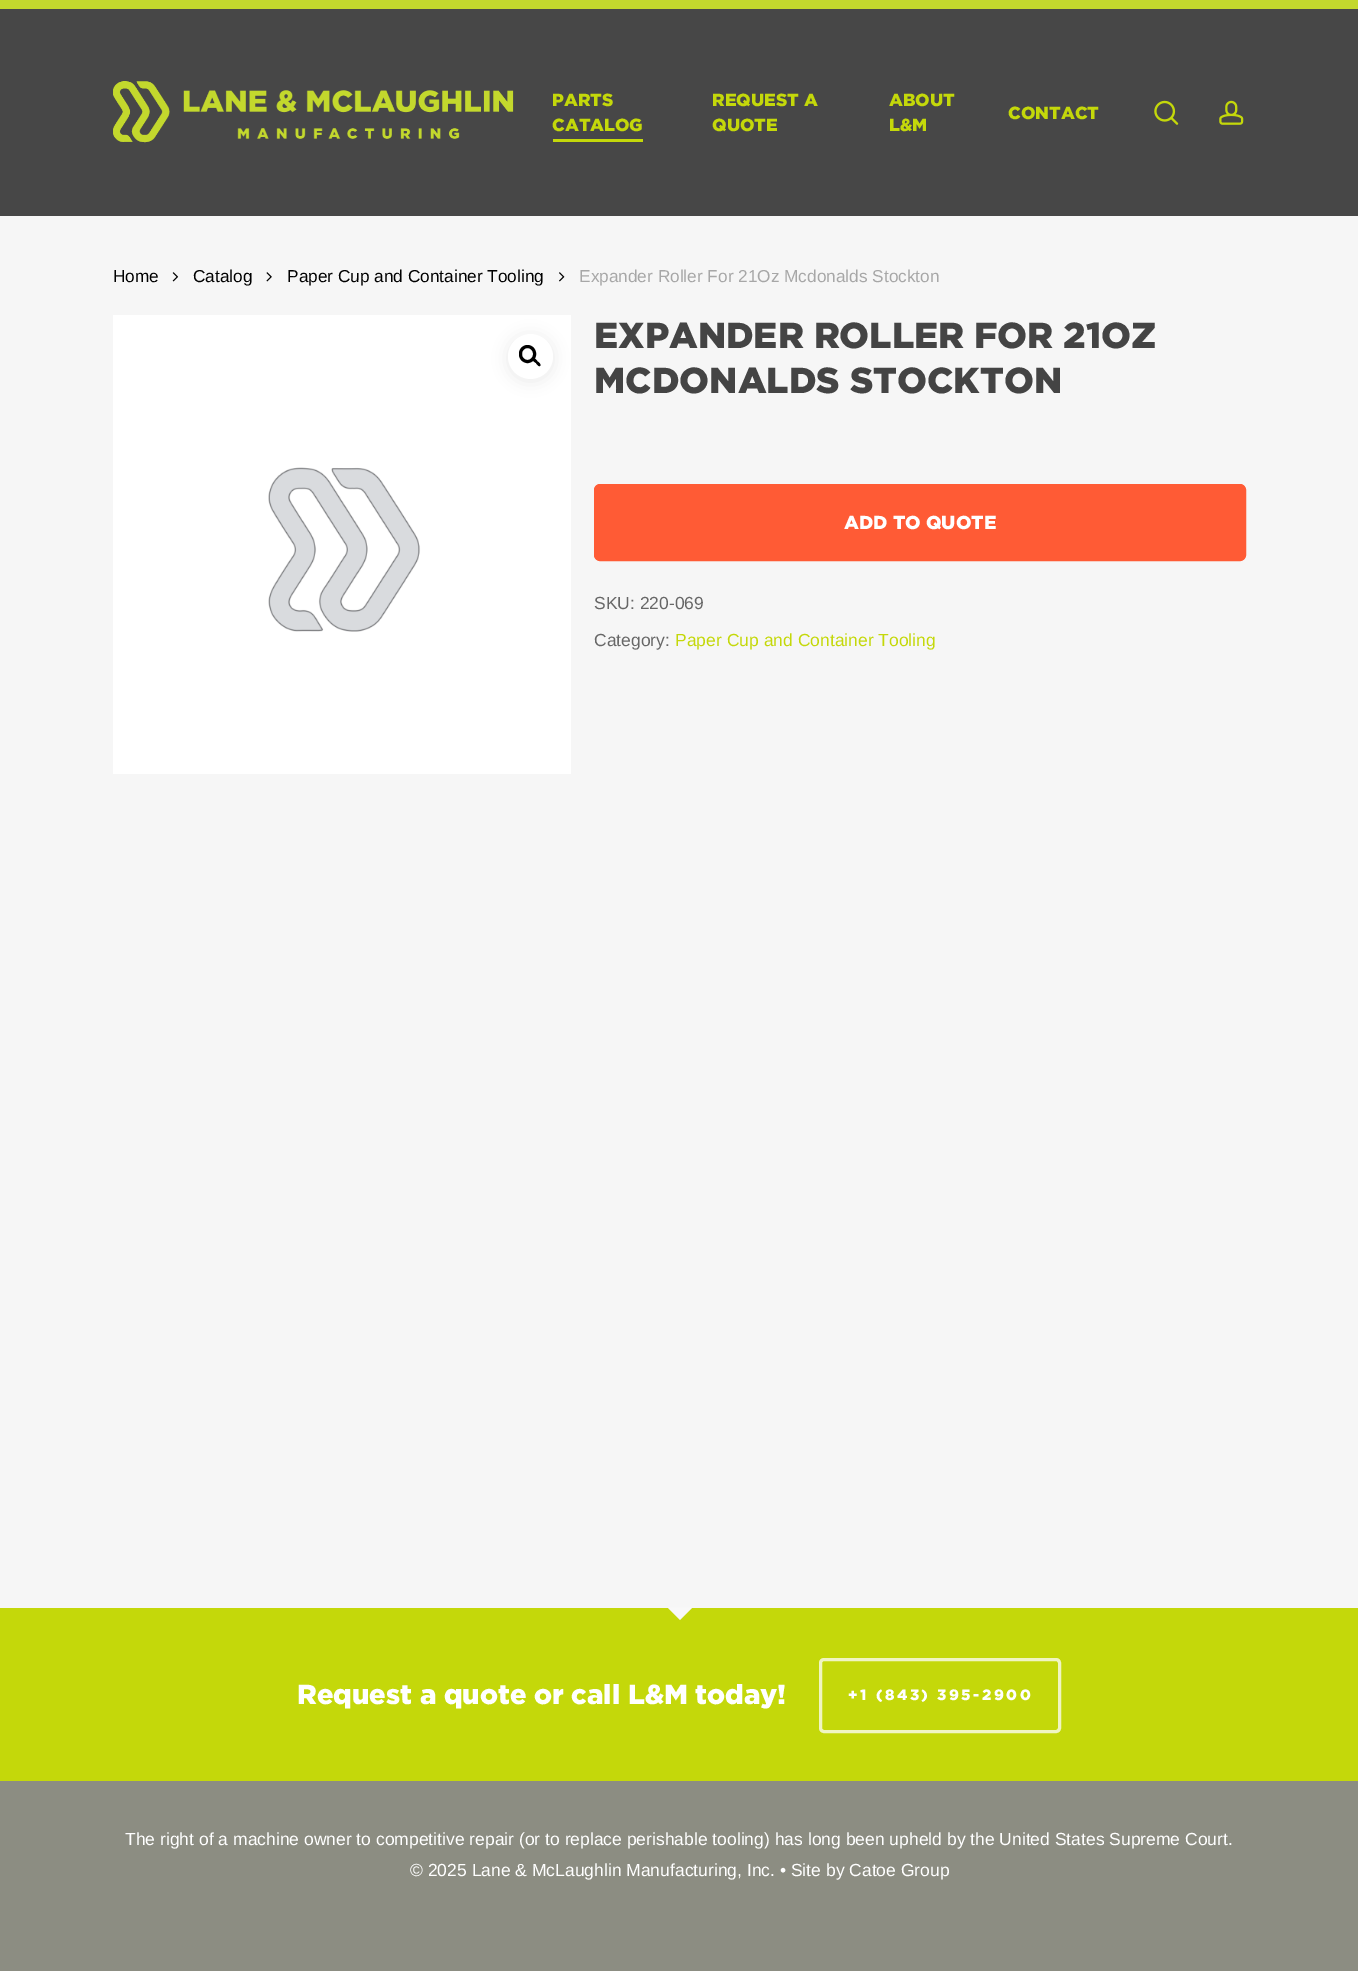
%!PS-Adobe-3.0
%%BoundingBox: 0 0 1358 1971
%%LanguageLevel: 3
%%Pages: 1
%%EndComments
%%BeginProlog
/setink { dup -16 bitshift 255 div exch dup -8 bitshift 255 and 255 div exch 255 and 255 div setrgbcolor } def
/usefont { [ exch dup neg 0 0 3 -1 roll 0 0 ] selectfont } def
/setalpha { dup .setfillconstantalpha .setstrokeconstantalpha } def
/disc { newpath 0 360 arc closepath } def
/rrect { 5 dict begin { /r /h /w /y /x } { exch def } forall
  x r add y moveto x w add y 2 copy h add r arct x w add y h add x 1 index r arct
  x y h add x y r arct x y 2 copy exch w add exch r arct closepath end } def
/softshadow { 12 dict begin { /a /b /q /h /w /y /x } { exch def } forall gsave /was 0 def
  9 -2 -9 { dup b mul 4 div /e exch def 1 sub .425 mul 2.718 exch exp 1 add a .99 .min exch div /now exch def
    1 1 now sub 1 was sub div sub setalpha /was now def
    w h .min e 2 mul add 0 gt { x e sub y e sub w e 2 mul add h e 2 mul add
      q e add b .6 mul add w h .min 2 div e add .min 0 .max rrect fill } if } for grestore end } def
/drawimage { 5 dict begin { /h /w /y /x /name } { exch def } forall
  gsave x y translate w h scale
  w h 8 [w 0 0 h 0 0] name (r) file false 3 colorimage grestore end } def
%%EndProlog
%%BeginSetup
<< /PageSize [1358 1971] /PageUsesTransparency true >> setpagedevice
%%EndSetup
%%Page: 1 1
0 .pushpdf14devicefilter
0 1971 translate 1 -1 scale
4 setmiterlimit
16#F6F6F6 setink
0 0 1358 1971 rectfill
16#474747 setink
0 9 1358 207 rectfill
16#C3D82D setink
0 0 1358 9 rectfill
(img1.raw) 113 81 401 62 drawimage
/Gotham-Black 17.5 usefont
16#C4D80A setink
552 106 moveto (PARTS) show
552 131 moveto (CATALOG) show
553 139 90 3 rectfill
[
    [(REQUEST A) 712 106]
    [(QUOTE) 712 131]
    [(ABOUT) 889 106]
    [(L&M) 889 131]
    [(CONTACT) 1008 119]
] { aload pop moveto show } forall
(img2.raw) 1154 100 25 25 drawimage
(img3.raw) 1219 100 25 25 drawimage
/LiberationSans-Regular 17.25 usefont
16#000000 setink
113 282 moveto (Home) show
(img4.raw) 172 272 7 10 drawimage
193 282 moveto (Catalog) show
(img5.raw) 266 272 6 10 drawimage
287 282 moveto (Paper Cup and Container Tooling) show
(img6.raw) 559 272 6 10 drawimage
16#A7A7A7 setink
579 282 moveto (Expander Roller For 21Oz Mcdonalds Stockton) show
(img7.raw) 113 315 458 459 drawimage
16#000000 setink
508 336 45 45 22.5 7.5 0.08 softshadow
16#FFFFFF setink
530.5 356.5 22.5 disc fill
16#000000 setink
3 setlinewidth
520.5 346.5 14 15 7 rrect stroke
533 358.5 moveto 534.5 357.5 537 360.5 537.5 361.5 curveto 538.5 362 541.5 364.5 540 366 curveto 539 367 536.5 364 536 363 curveto 535 362.5 531.5 360 533 358.5 curveto closepath fill
/Gotham-Black 36.1 usefont
16#444444 setink
594 348 moveto (EXPANDER ROLLER FOR 21OZ) show
594 393 moveto (MCDONALDS STOCKTON) show
16#FF5B35 setink
594.5 484.5 651 76 5.5 rrect gsave fill grestore
1 setlinewidth
stroke
/Gotham-Black 18.75 usefont
16#FFFFFF setink
844 529 moveto (ADD TO QUOTE) show
/LiberationSans-Regular 17.5 usefont
16#676767 setink
594 609 moveto (SKU: 220-069) show
594 646 moveto (Category:) show
16#C4D80A setink
675 646 moveto (Paper Cup and Container Tooling) show
16#8C8D82 setink
0 1781 1358 190 rectfill
16#C4D80A setink
0 1608 1358 173 rectfill
16#F8F8F8 setink
667.5 1607.5 moveto 692.5 1607.5 lineto 680 1620 lineto closepath fill
/Gotham-Black 27.5 usefont
16#FFFFFF setink
297 1704 moveto (Request a quote or call L&M today!) show
16#F0F5C2 setink
3 setlinewidth
820.5 1659.5 239 72 3.5 rrect stroke
/Gotham-Black 15 usefont
16#FFFFFF setink
848 1700 moveto 2.5 0 (+1 \(843\) 395-2900) ashow
/LiberationSans-Regular 17.5 usefont
125 1845 moveto (The right of a machine owner to competitive repair \(or to replace perishable tooling\) has long been upheld by the United States Supreme Court.) show
410 1876 moveto (© 2025 Lane & McLaughlin Manufacturing, Inc. • Site by Catoe Group) show
.poppdf14devicefilter showpage
%%EOF
